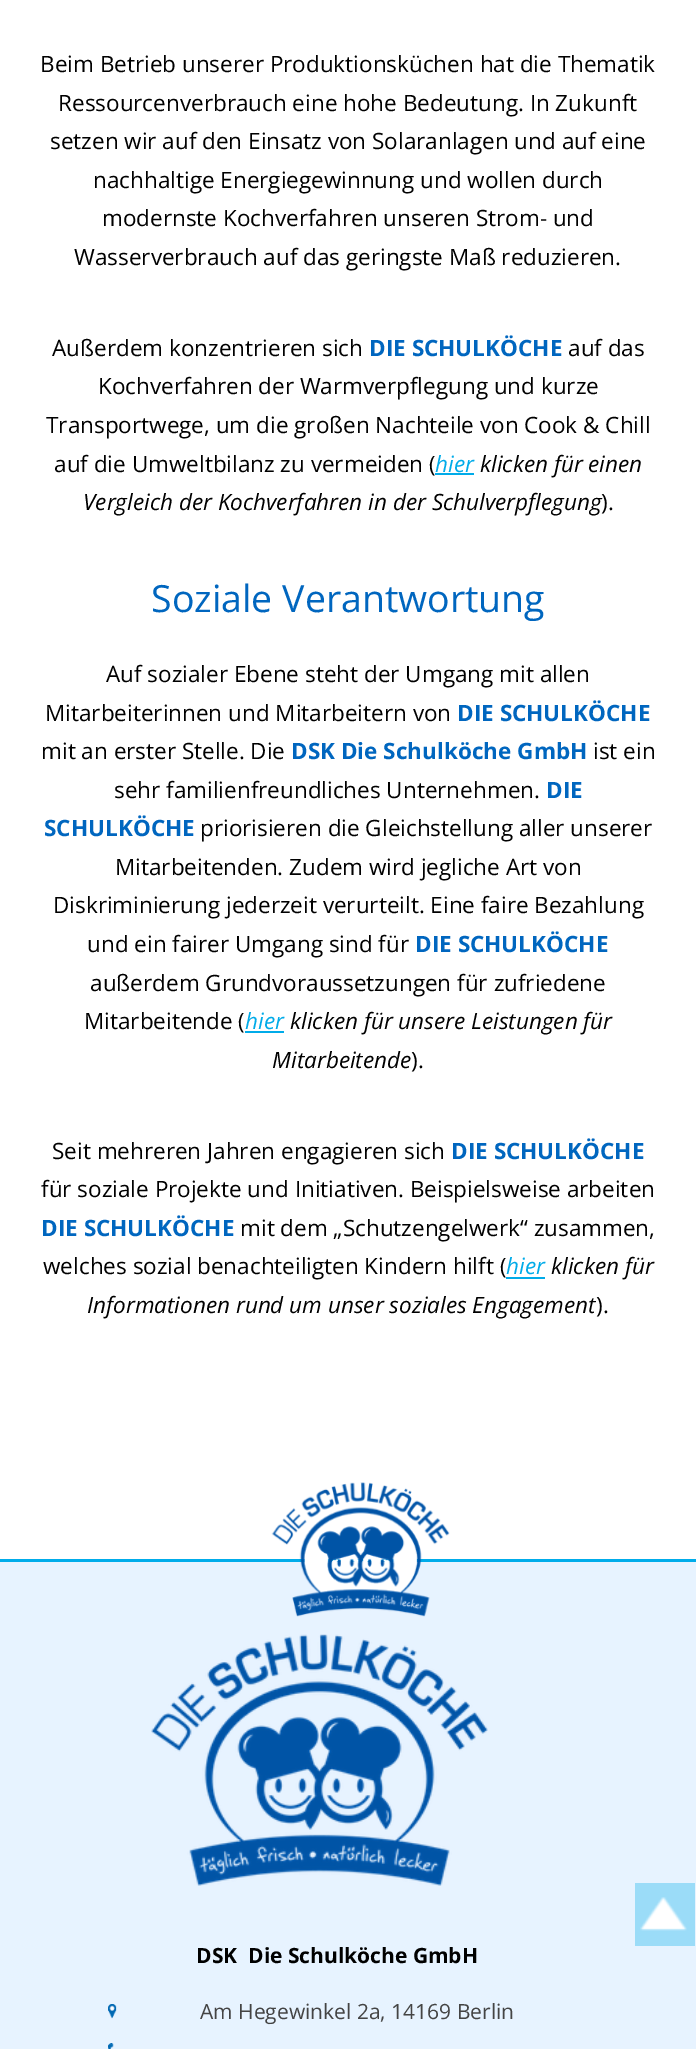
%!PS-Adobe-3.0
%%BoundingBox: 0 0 696 2049
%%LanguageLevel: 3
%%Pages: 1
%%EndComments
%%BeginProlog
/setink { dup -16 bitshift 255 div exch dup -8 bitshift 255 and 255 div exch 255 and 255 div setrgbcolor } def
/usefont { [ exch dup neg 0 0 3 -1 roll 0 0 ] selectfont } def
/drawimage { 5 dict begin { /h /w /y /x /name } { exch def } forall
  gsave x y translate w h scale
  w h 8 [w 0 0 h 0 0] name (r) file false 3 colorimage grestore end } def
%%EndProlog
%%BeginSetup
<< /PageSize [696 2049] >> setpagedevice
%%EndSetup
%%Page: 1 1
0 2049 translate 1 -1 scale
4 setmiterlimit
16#FFFFFF setink
0 0 696 2049 rectfill
/OpenSans-Regular 22.5 usefont
16#000000 setink
[
    [(Beim Betrieb unserer Produktionsküchen hat die Thematik) 40 72]
    [(Ressourcenverbrauch eine hohe Bedeutung. In Zukunft) 58 111]
    [(setzen wir auf den Einsatz von Solaranlagen und auf eine) 50 149]
    [(nachhaltige Energiegewinnung und wollen durch) 93 188]
    [(modernste Kochverfahren unseren Strom- und) 102 226]
    [(Wasserverbrauch auf das geringste Maß reduzieren.) 74 265]
    [(Außerdem konzentrieren sich) 52 356]
] { aload pop moveto show } forall
/OpenSans-Bold 22.5 usefont
16#0066BF setink
369 356 moveto (DIE SCHULKÖCHE) show
/OpenSans-Regular 22.5 usefont
16#000000 setink
[
    [(auf das) 568 356]
    [(Kochverfahren der Warmverpflegung und kurze) 98 394]
    [(Transportwege, um die großen Nachteile von Cook & Chill) 46 433]
    [(auf die Umweltbilanz zu vermeiden \() 54 472]
] { aload pop moveto show } forall
/OpenSans-Italic 22.5 usefont
16#00ABE9 setink
435 472 moveto (hier) show
435 473 39 2 rectfill
16#000000 setink
480 472 moveto (klicken für einen) show
83 510 moveto (Vergleich der Kochverfahren in der Schulverpflegung) show
/OpenSans-Regular 22.5 usefont
601 510 moveto (\).) show
/OpenSans-Regular 37.5 usefont
16#0066BF setink
151 612 moveto (Soziale Verantwortung) show
/OpenSans-Regular 22.5 usefont
16#000000 setink
106 682 moveto (Auf sozialer Ebene steht der Umgang mit allen) show
45 721 moveto (Mitarbeiterinnen und Mitarbeitern von) show
/OpenSans-Bold 22.5 usefont
16#0066BF setink
457 721 moveto (DIE SCHULKÖCHE) show
/OpenSans-Regular 22.5 usefont
16#000000 setink
41 759 moveto (mit an erster Stelle. Die) show
/OpenSans-Bold 22.5 usefont
16#0066BF setink
291 759 moveto (DSK Die Schulköche GmbH) show
/OpenSans-Regular 22.5 usefont
16#000000 setink
593 759 moveto (ist ein) show
114 798 moveto (sehr familienfreundliches Unternehmen.) show
/OpenSans-Bold 22.5 usefont
16#0066BF setink
546 798 moveto (DIE) show
44 836 moveto (SCHULKÖCHE) show
/OpenSans-Regular 22.5 usefont
16#000000 setink
[
    [(priorisieren die Gleichstellung aller unserer) 200 836]
    [(Mitarbeitenden. Zudem wird jegliche Art von) 115 875]
    [(Diskriminierung jederzeit verurteilt. Eine faire Bezahlung) 53 913]
    [(und ein fairer Umgang sind für) 87 952]
] { aload pop moveto show } forall
/OpenSans-Bold 22.5 usefont
16#0066BF setink
415 952 moveto (DIE SCHULKÖCHE) show
/OpenSans-Regular 22.5 usefont
16#000000 setink
90 991 moveto (außerdem Grundvoraussetzungen für zufriedene) show
84 1029 moveto (Mitarbeitende \() show
/OpenSans-Italic 22.5 usefont
16#00ABE9 setink
245 1029 moveto (hier) show
245 1031 39 2 rectfill
16#000000 setink
290 1029 moveto (klicken für unsere Leistungen für) show
272 1068 moveto (Mitarbeitende) show
/OpenSans-Regular 22.5 usefont
411 1068 moveto (\).) show
52 1159 moveto (Seit mehreren Jahren engagieren sich) show
/OpenSans-Bold 22.5 usefont
16#0066BF setink
451 1159 moveto (DIE SCHULKÖCHE) show
/OpenSans-Regular 22.5 usefont
16#000000 setink
41 1197 moveto (für soziale Projekte und Initiativen. Beispielsweise arbeiten) show
/OpenSans-Bold 22.5 usefont
16#0066BF setink
41 1236 moveto (DIE SCHULKÖCHE) show
/OpenSans-Regular 22.5 usefont
16#000000 setink
240 1236 moveto (mit dem „Schutzengelwerk“ zusammen,) show
43 1274 moveto (welches sozial benachteiligten Kindern hilft \() show
/OpenSans-Italic 22.5 usefont
16#00ABE9 setink
506 1274 moveto (hier) show
506 1277 39 2 rectfill
16#000000 setink
551 1274 moveto (klicken für) show
87 1313 moveto (Informationen rund um unser soziales Engagement) show
/OpenSans-Regular 22.5 usefont
596 1313 moveto (\).) show
16#E7F3FF setink
0 1562 696 487 rectfill
16#00ACEA setink
0 1559 696 3 rectfill
(img1.raw) 271 1482 179 135 drawimage
(img2.raw) 151 1634 337 252 drawimage
/OpenSans-Bold 21 usefont
16#000000 setink
196 1963 moveto (DSK  Die Schulköche GmbH) show
(img3.raw) 108 2004 9 15 drawimage
/OpenSans-Regular 21 usefont
16#444444 setink
200 2019 moveto (Am Hegewinkel 2a, 14169 Berlin) show
(img4.raw) 108 2043 6 6 drawimage
16#9BDCF8 setink
635 1883 60 63 rectfill
(img5.raw) 640 1897 47 34 drawimage
showpage
%%EOF
